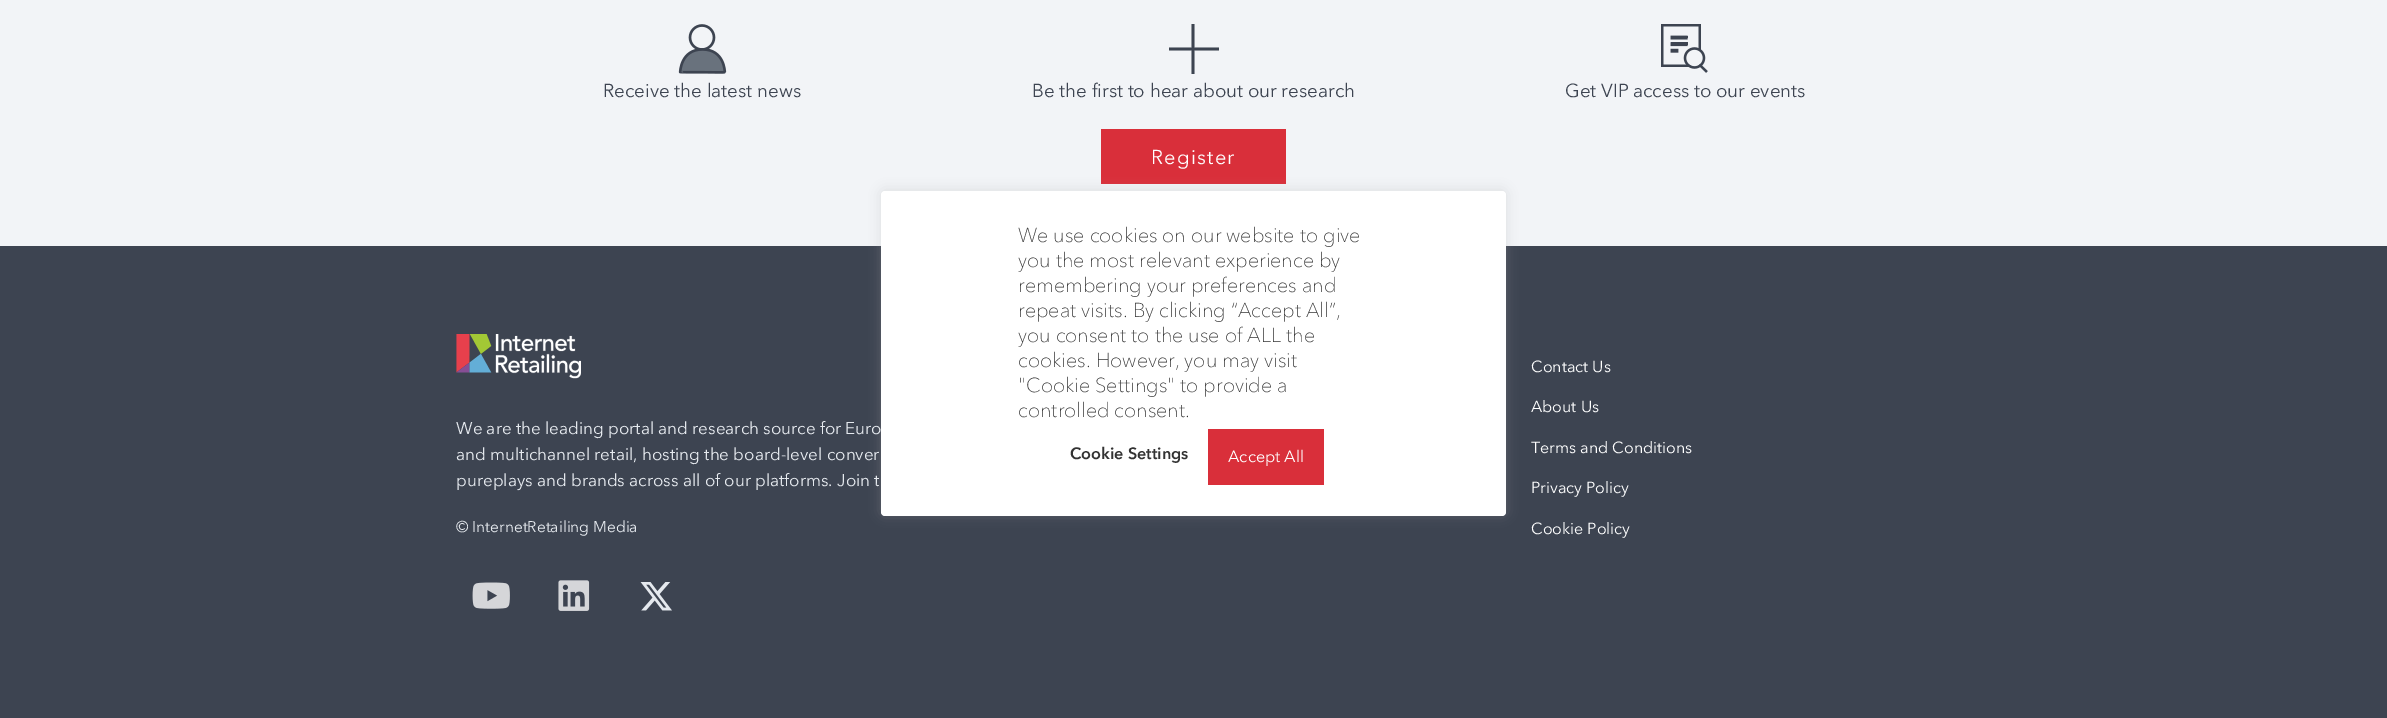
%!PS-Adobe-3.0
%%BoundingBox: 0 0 2387 718
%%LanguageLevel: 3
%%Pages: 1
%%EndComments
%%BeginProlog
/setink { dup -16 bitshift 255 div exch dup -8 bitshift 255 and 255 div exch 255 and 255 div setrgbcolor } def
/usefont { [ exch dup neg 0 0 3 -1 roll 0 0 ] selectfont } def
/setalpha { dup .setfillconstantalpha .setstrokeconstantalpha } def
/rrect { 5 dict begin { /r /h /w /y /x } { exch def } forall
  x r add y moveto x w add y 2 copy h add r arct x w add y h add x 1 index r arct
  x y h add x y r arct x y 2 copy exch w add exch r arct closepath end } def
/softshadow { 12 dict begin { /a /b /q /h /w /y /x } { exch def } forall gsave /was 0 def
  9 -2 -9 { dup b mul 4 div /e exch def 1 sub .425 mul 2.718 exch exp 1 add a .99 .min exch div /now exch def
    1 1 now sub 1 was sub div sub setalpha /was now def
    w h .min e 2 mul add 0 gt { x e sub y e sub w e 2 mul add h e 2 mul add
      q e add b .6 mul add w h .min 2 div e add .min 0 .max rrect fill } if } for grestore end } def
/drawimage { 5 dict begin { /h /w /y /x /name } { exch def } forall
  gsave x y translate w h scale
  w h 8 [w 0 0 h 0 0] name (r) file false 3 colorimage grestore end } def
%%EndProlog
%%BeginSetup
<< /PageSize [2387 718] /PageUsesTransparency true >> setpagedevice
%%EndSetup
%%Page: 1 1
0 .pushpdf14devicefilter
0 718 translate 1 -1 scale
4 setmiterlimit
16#F2F4F7 setink
0 0 2387 718 rectfill
(img1.raw) 678 24 49 50 drawimage
/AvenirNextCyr-Regular 18.75 usefont
16#3D4451 setink
603 97 moveto (Receive the latest news) show
gsave
1169 24 50 50 rectclip
2.8 setlinewidth
2 setlinecap
1193 25 moveto 1193 72.5 lineto 1170 49 moveto 1217.5 49 lineto stroke
grestore
1032 97 moveto (Be the first to hear about our research) show
(img2.raw) 1661 24 47 49 drawimage
1565 97 moveto (Get VIP access to our events) show
16#D92F3A setink
1101 129 185 55 rectfill
/AvenirNextCyr-Regular 20 usefont
16#FFFFFF setink
1151 164 moveto 1.25 0 (Register) ashow
16#3D4451 setink
0 246 2387 472 rectfill
16#ACABAB setink
881 190 625 325 4 6 0.3 softshadow
/AvenirNextCyr-Regular 17 usefont
16#E5E9EE setink
456 434 moveto (We are the leading portal and research source for Euro) show
16#FFFFFF setink
881 191 625 325 4 rrect fill
/AvenirNextCyr-Thin 20 usefont
16#333333 setink
[
    [(We use cookies on our website to give) 1018 242]
    [(you the most relevant experience by) 1018 267]
    [(remembering your preferences and) 1018 292]
    [(repeat visits. By clicking “Accept All”,) 1018 317]
    [(you consent to the use of ALL the) 1018 342]
    [(cookies. However, you may visit) 1018 367]
    [("Cookie Settings" to provide a) 1018 392]
    [(controlled consent.) 1018 417]
] { aload pop moveto show } forall
/AvenirNextCyr-Bold 16.25 usefont
1070 459 moveto (Cookie Settings) show
16#D92F3A setink
1208 429 116 56 rectfill
/AvenirNextCyr-Regular 16.25 usefont
16#FFFFFF setink
1228 462 moveto (Accept All) show
(img3.raw) 456 334 125 45 drawimage
/AvenirNextCyr-Regular 17 usefont
16#E5E9EE setink
456 460 moveto (and multichannel retail, hosting the board-level conver) show
456 486 moveto (pureplays and brands across all of our platforms. Join t) show
/AvenirNextCyr-Regular 15.5 usefont
456 532 moveto (© InternetRetailing Media) show
(img4.raw) 472 582 38 27 drawimage
(img5.raw) 558 580 32 31 drawimage
(img6.raw) 640 582 32 29 drawimage
/AvenirNextCyr-Regular 16 usefont
16#FFFFFF setink
[
    [(Contact Us) 1531 372]
    [(About Us) 1531 412]
    [(Terms and Conditions) 1531 453]
    [(Privacy Policy) 1531 493]
    [(Cookie Policy) 1531 534]
] { aload pop moveto show } forall
.poppdf14devicefilter showpage
%%EOF
